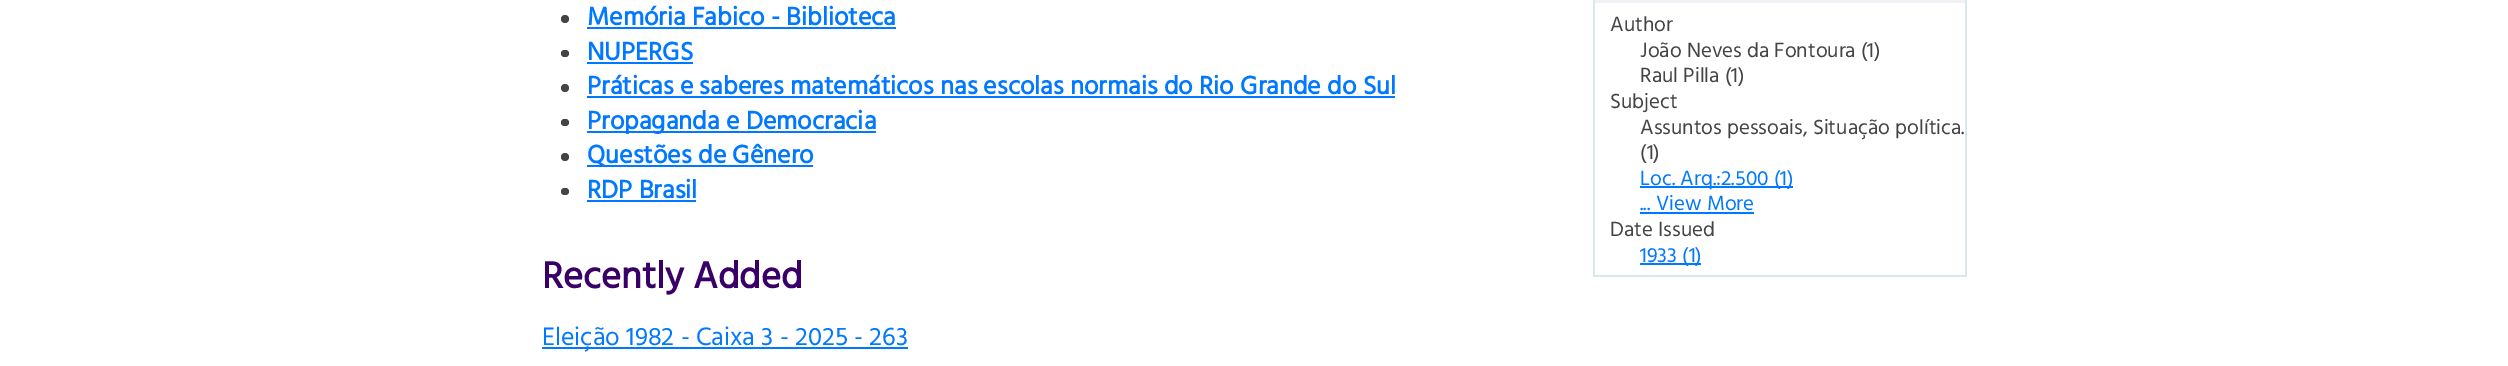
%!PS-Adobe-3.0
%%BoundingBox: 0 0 2508 366
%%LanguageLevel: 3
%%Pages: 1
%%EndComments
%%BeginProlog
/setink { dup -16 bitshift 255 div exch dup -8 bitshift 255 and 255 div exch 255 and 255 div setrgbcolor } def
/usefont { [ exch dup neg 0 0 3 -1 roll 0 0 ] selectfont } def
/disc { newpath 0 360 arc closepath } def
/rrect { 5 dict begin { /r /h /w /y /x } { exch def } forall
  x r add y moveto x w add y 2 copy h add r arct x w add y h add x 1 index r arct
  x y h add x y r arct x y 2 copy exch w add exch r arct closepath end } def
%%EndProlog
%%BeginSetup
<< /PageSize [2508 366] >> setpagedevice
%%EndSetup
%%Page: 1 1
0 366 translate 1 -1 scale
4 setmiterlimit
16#FFFFFF setink
0 0 2508 366 rectfill
16#444444 setink
565 19 4 disc fill
/HindVadodara-Bold 25.85 usefont
16#0078FF setink
587 25 moveto (Memória Fabico - Biblioteca) show
587 27 309 2 rectfill
16#444444 setink
561 50 8 7 3.5 rrect fill
16#0078FF setink
587 60 moveto (NUPERGS) show
587 62 106 2 rectfill
16#444444 setink
565 88 4 disc fill
16#0078FF setink
587 94 moveto (Práticas e saberes matemáticos nas escolas normais do Rio Grande do Sul) show
587 96 808 2 rectfill
16#444444 setink
561 119 8 7 3.5 rrect fill
16#0078FF setink
587 131 289 2 rectfill
587 129 moveto (Propaganda e Democracia) show
16#444444 setink
565 157 4 disc fill
16#0078FF setink
587 165 226 2 rectfill
587 163 moveto (Questões de Gênero) show
16#444444 setink
561 188 8 7 3.5 rrect fill
16#0078FF setink
587 198 moveto (RDP Brasil) show
587 200 109 2 rectfill
/HindVadodara-Bold 38.25 usefont
16#390067 setink
542 288 moveto (Recently Added) show
16#0078FF setink
542 347 366 2 rectfill
/HindVadodara-Regular 25.85 usefont
542 345 moveto (Eleição 1982 - Caixa 3 - 2025 - 263) show
[
    [1593 0 374 3 16#F0F2F5]
    [1965 0 2 276 16#D8E8EB]
    [1593 0 2 3 16#D8E8EB]
    [1593 275 374 2 16#D8E8EB]
    [1593 3 2 273 16#D8E8EB]
] { aload pop setink rectfill } forall
/HindVadodara-Regular 21 usefont
16#444444 setink
[
    [(Author) 1610 31]
    [(João Neves da Fontoura \(1\)) 1640 57]
    [(Raul Pilla \(1\)) 1640 82]
    [(Subject) 1610 108]
    [(Assuntos pessoais, Situação política.) 1640 134]
    [(\(1\)) 1640 159]
] { aload pop moveto show } forall
16#0078FF setink
1640 186 153 2 rectfill
1640 185 moveto (Loc. Arq.:2.500 \(1\)) show
1640 210 moveto (... View More) show
1640 212 114 2 rectfill
16#444444 setink
1610 236 moveto (Date Issued) show
16#0078FF setink
1640 263 61 2 rectfill
1640 262 moveto (1933 \(1\)) show
showpage
%%EOF
